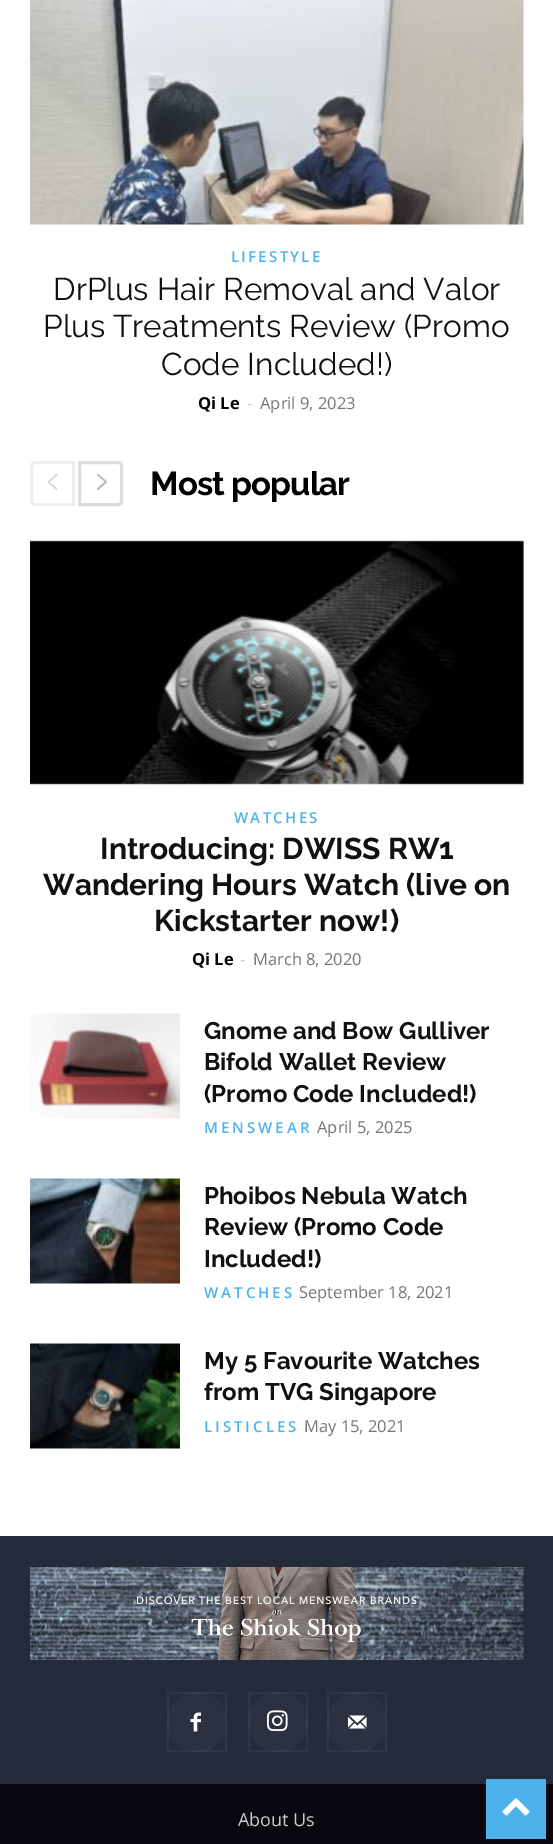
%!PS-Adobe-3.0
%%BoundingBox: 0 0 553 1844
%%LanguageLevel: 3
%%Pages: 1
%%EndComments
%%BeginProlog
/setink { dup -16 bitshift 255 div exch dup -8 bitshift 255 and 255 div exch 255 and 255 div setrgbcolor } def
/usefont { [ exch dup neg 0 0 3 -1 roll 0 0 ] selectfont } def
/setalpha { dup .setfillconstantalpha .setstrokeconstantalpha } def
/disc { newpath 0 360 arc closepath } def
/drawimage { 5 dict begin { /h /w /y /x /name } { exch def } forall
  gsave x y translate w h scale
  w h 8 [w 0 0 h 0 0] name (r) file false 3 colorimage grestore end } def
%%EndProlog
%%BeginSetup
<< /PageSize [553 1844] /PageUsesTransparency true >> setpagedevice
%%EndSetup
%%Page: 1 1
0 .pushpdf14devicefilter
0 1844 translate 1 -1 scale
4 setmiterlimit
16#FFFFFF setink
0 0 553 1844 rectfill
(img1.raw) 30 0 494 225 drawimage
/OpenSans-SemiBold 15 usefont
16#4DB2EC setink
231 262 moveto 2.25 0 (LIFESTYLE) ashow
/Raleway-Regular 31.5 usefont
16#111111 setink
[
    [(DrPlus Hair Removal and Valor) 53 300]
    [(Plus Treatments Review \(Promo) 43 337]
    [(Code Included!\)) 161 375]
] { aload pop moveto show } forall
/OpenSans-Bold 16.5 usefont
16#000000 setink
198 409 moveto (Qi Le) show
/OpenSans-Regular 16.5 usefont
16#CCCCCC setink
247 409 moveto (-) show
16#767676 setink
260 409 moveto (April 9, 2023) show
16#EEEEEE setink
3 setlinewidth
35 462.5 moveto 73.5 462.5 lineto 73.5 504.5 lineto 35 504.5 lineto 33 504.5 31.5 503 31.5 501 curveto 31.5 466 lineto 31.5 464 33 462.5 35 462.5 curveto closepath stroke
(img2.raw) 47 473 11 17 drawimage
16#DCDCDC setink
79.5 462.5 moveto 118 462.5 lineto 120 462.5 121.5 464 121.5 466 curveto 121.5 501 lineto 121.5 503 120 504.5 118 504.5 curveto 79.5 504.5 lineto closepath stroke
(img3.raw) 96 473 12 18 drawimage
/Raleway-Bold 33 usefont
16#000000 setink
150 495 moveto -0.9 0 (Most popular) ashow
(img4.raw) 30 540 494 245 drawimage
/OpenSans-SemiBold 15 usefont
16#4DB2EC setink
234 823 moveto 2.25 0 (WATCHES) ashow
/Raleway-Bold 30 usefont
16#111111 setink
[
    [(Introducing: DWISS RW1) 100 859]
    [(Wandering Hours Watch \(live on) 43 895]
    [(Kickstarter now!\)) 154 931]
] { aload pop moveto show } forall
/OpenSans-Bold 16.5 usefont
16#000000 setink
192 965 moveto (Qi Le) show
/OpenSans-Regular 16.5 usefont
16#CCCCCC setink
240 965 moveto (-) show
16#767676 setink
253 965 moveto (March 8, 2020) show
(img5.raw) 30 1013 150 106 drawimage
/Raleway-Bold 24 usefont
16#111111 setink
[
    [(Gnome and Bow Gulliver) 204 1039]
    [(Bifold Wallet Review) 204 1070]
    [(\(Promo Code Included!\)) 204 1102]
] { aload pop moveto show } forall
/OpenSans-SemiBold 15 usefont
16#4DB2EC setink
204 1133 moveto 3 0 (MENSWEAR) ashow
/OpenSans-Regular 16.5 usefont
16#767676 setink
317 1133 moveto (April 5, 2025) show
(img6.raw) 30 1178 150 106 drawimage
/Raleway-Bold 24 usefont
16#111111 setink
[
    [(Phoibos Nebula Watch) 204 1204]
    [(Review \(Promo Code) 204 1235]
    [(Included!\)) 204 1267]
] { aload pop moveto show } forall
/OpenSans-SemiBold 15 usefont
16#4DB2EC setink
204 1298 moveto 3 0 (WATCHES) ashow
/OpenSans-Regular 16.5 usefont
16#767676 setink
299 1298 moveto (September 18, 2021) show
(img7.raw) 30 1343 150 106 drawimage
/Raleway-Bold 24 usefont
16#111111 setink
204 1369 moveto (My 5 Favourite Watches) show
204 1400 moveto (from TVG Singapore) show
/OpenSans-SemiBold 15 usefont
16#4DB2EC setink
204 1432 moveto 3 0 (LISTICLES) ashow
/OpenSans-Regular 16.5 usefont
16#767676 setink
304 1432 moveto (May 15, 2021) show
16#242B3B setink
0 1536 553 248 rectfill
(img8.raw) 30 1567 494 93 drawimage
16#2B3141 setink
197 1722 30 disc fill
(img9.raw) 190 1712 11 20 drawimage
0.05 setalpha
16#FFFFFF setink
2 setlinewidth
168 1693 58 58 rectstroke
1 setalpha
16#2B3141 setink
278 1722 30 disc fill
(img10.raw) 267 1710 21 21 drawimage
0.05 setalpha
16#FFFFFF setink
249 1693 58 58 rectstroke
1 setalpha
16#2B3141 setink
357 1722 30 disc fill
(img11.raw) 348 1715 19 14 drawimage
0.05 setalpha
16#FFFFFF setink
328 1693 58 58 rectstroke
1 setalpha
16#080810 setink
0 1784 553 60 rectfill
/OpenSans-Regular 18 usefont
16#CCCCCC setink
238 1826 moveto (About Us) show
16#4DB2EC setink
486 1779 60 60 rectfill
(img12.raw) 502 1798 28 18 drawimage
.poppdf14devicefilter showpage
%%EOF
